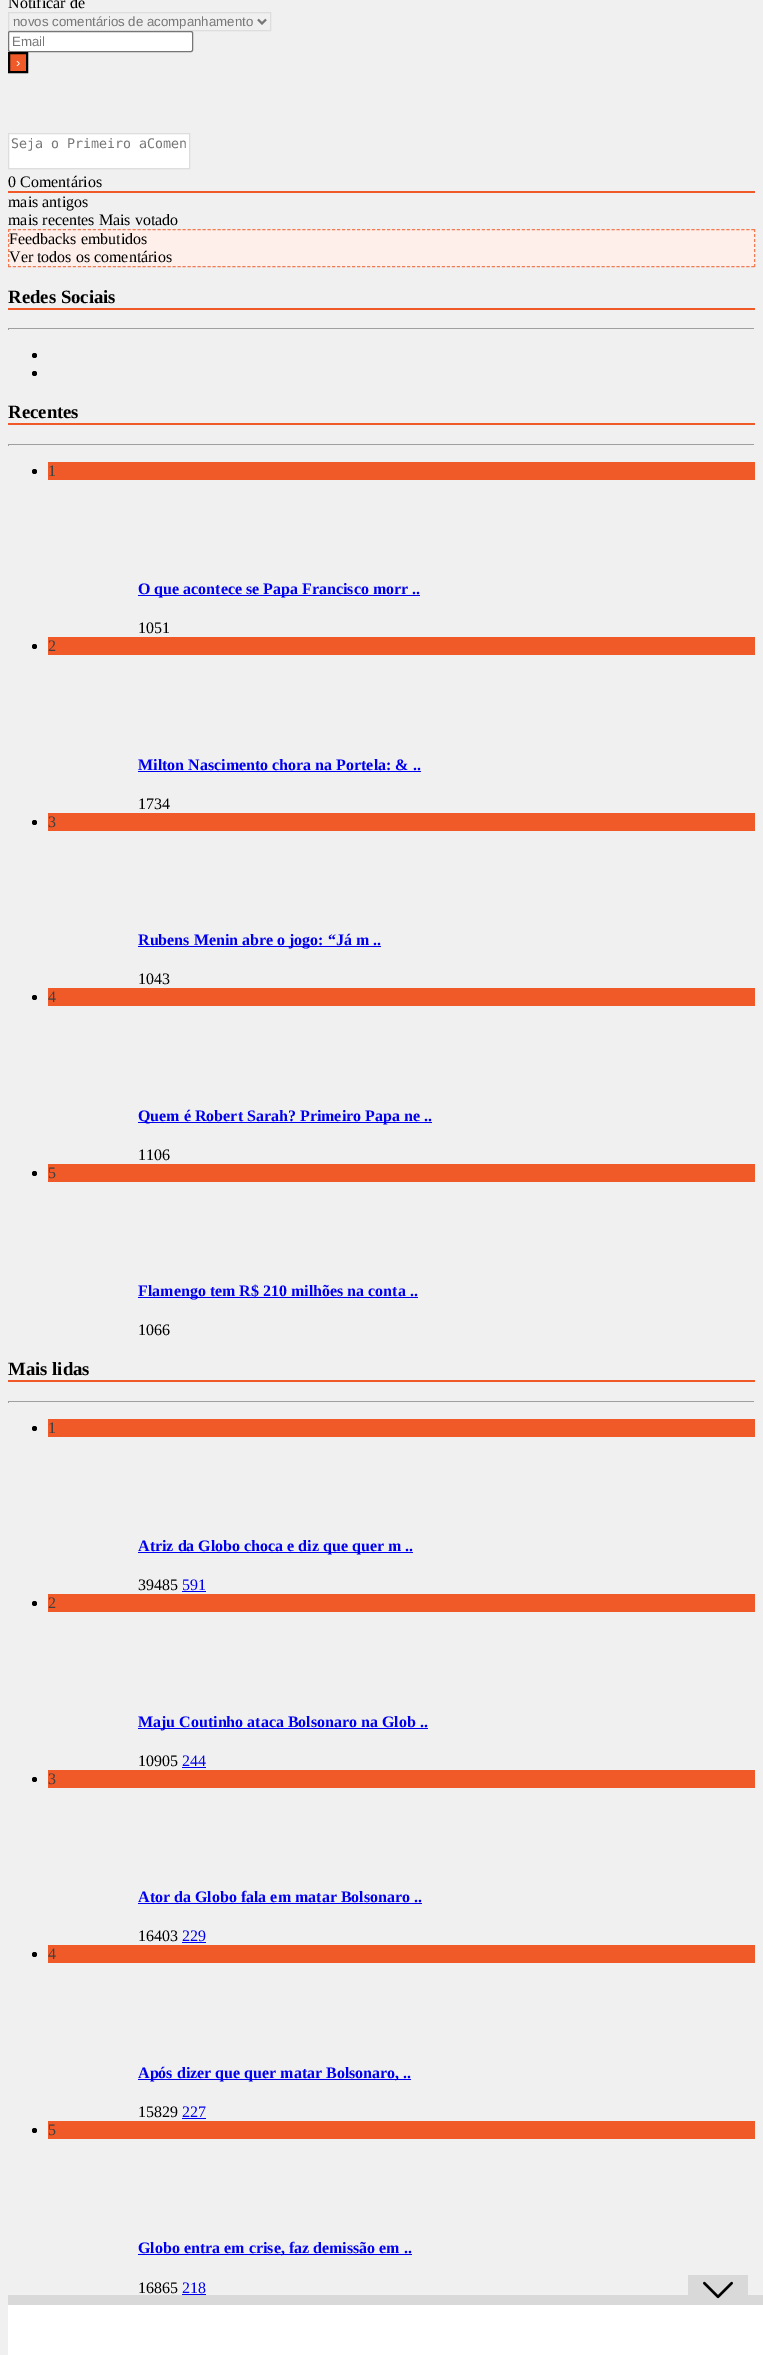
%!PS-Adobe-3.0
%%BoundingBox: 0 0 763 2355
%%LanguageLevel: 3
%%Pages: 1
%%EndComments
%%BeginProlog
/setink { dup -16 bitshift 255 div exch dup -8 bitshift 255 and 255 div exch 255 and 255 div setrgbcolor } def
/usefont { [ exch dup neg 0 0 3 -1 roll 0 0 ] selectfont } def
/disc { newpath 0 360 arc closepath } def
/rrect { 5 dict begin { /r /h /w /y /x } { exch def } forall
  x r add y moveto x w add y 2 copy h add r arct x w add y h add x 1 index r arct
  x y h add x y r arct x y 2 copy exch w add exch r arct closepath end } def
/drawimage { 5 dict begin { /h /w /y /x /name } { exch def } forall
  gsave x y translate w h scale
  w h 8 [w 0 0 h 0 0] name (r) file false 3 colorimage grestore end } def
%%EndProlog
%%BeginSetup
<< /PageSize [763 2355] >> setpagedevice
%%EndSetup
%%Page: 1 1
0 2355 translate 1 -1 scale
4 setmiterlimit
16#F0F0F0 setink
0 0 763 2355 rectfill
/LiberationSerif-Regular 16 usefont
16#000000 setink
8 8 moveto (Notificar de) show
16#DDDDDD setink
8.5 12.5 262 18 rectstroke
16#777777 setink
2 setlinewidth
258 19.5 moveto 262 23.5 lineto 266 19.5 lineto stroke
/LiberationSans-Regular 13.3 usefont
13 26 moveto (novos comentários de acompanhamento) show
16#FFFFFF setink
8.5 31.5 184 20 1.5 rrect gsave fill grestore
16#767676 setink
1 setlinewidth
stroke
16#777777 setink
12 46 moveto (Email) show
16#F05A28 setink
9 53 moveto 27 53 lineto 27 72 lineto 9 72 lineto closepath gsave fill grestore
16#000000 setink
2 setlinewidth
stroke
16#FFFFFF setink
16 67 moveto (›) show
8.5 133.5 moveto 189.5 133.5 lineto 189.5 168.5 lineto 8.5 168.5 lineto closepath gsave fill grestore
16#DDDDDD setink
1 setlinewidth
stroke
/DejaVuSansMono-Regular 13.3 usefont
16#777777 setink
11 148 moveto (Seja o Primeiro aComen) show
16#F05A28 setink
8 191 747 2 rectfill
/LiberationSerif-Regular 16 usefont
16#000000 setink
[
    [(0 Comentários) 8 187]
    [(mais antigos) 8 207]
    [(mais recentes Mais votado) 8 225]
] { aload pop moveto show } forall
16#FEEFEA setink
8 229 747 38 rectfill
16#F37B53 setink
[3 1.99] 0 setdash
8 229.5 moveto 755 229.5 lineto stroke
[3 2] 0 setdash
754.5 229 moveto 754.5 267 lineto stroke
[3 1.99] 0 setdash
8 266.5 moveto 755 266.5 lineto stroke
[3 2] 0 setdash
8.5 229 moveto 8.5 267 lineto stroke
16#000000 setink
9 244 moveto (Feedbacks embutidos) show
9 262 moveto (Ver todos os comentários) show
16#F05A28 setink
8 308 747 2 rectfill
/LiberationSerif-Bold 18.75 usefont
16#000000 setink
8 303 moveto (Redes Sociais) show
[
    [8 328 747 1 16#9F9F9F]
    [754 328 1 2 16#EEEEEE]
    [8 328 1 2 16#9F9F9F]
] { aload pop setink rectfill } forall
16#000000 setink
34.5 355.5 2.5 disc fill
34.5 373.5 2.5 disc fill
16#F05A28 setink
8 423 747 2 rectfill
16#000000 setink
8 418 moveto (Recentes) show
[
    [8 444 747 1 16#9F9F9F]
    [754 444 1 2 16#EEEEEE]
    [8 444 1 2 16#9F9F9F]
] { aload pop setink rectfill } forall
16#000000 setink
34.5 471.5 2.5 disc fill
16#F05A28 setink
48 462 707 18 rectfill
/LiberationSerif-Regular 16 usefont
16#404041 setink
48 476 moveto (1) show
16#0000EE setink
138 595 282 1 rectfill
/LiberationSerif-Bold 16 usefont
138 594 moveto (O que acontece se Papa Francisco morr ..) show
/LiberationSerif-Regular 16 usefont
16#000000 setink
138 633 moveto (1051) show
34.5 646.5 2.5 disc fill
16#F05A28 setink
48 637 707 18 rectfill
16#404041 setink
48 651 moveto (2) show
/LiberationSerif-Bold 16 usefont
16#0000EE setink
138 770 moveto (Milton Nascimento chora na Portela: & ..) show
138 771 283 1 rectfill
/LiberationSerif-Regular 16 usefont
16#000000 setink
138 809 moveto (1734) show
34.5 822.5 2.5 disc fill
16#F05A28 setink
48 813 707 18 rectfill
16#404041 setink
48 827 moveto (3) show
16#0000EE setink
138 946 243 1 rectfill
/LiberationSerif-Bold 16 usefont
138 945 moveto (Rubens Menin abre o jogo: “Já m ..) show
/LiberationSerif-Regular 16 usefont
16#000000 setink
138 984 moveto (1043) show
34.5 997.5 2.5 disc fill
16#F05A28 setink
48 988 707 18 rectfill
16#404041 setink
48 1002 moveto (4) show
16#0000EE setink
138 1122 294 1 rectfill
/LiberationSerif-Bold 16 usefont
138 1121 moveto (Quem é Robert Sarah? Primeiro Papa ne ..) show
/LiberationSerif-Regular 16 usefont
16#000000 setink
138 1160 moveto (1106) show
34.5 1173.5 2.5 disc fill
16#F05A28 setink
48 1164 707 18 rectfill
16#404041 setink
48 1178 moveto (5) show
16#0000EE setink
138 1297 280 1 rectfill
/LiberationSerif-Bold 16 usefont
138 1296 moveto (Flamengo tem R$ 210 milhões na conta ..) show
/LiberationSerif-Regular 16 usefont
16#000000 setink
138 1335 moveto (1066) show
16#F05A28 setink
8 1380 747 2 rectfill
/LiberationSerif-Bold 18.75 usefont
16#000000 setink
8 1375 moveto (Mais lidas) show
[
    [8 1401 747 1 16#9F9F9F]
    [754 1401 1 2 16#EEEEEE]
    [8 1401 1 2 16#9F9F9F]
] { aload pop setink rectfill } forall
16#000000 setink
34.5 1428.5 2.5 disc fill
16#F05A28 setink
48 1419 707 18 rectfill
/LiberationSerif-Regular 16 usefont
16#404041 setink
48 1433 moveto (1) show
16#0000EE setink
138 1552 275 1 rectfill
/LiberationSerif-Bold 16 usefont
138 1551 moveto (Atriz da Globo choca e diz que quer m ..) show
/LiberationSerif-Regular 16 usefont
16#000000 setink
138 1590 moveto (39485) show
16#0000EE setink
182 1590 moveto (591) show
182 1591 24 1 rectfill
16#000000 setink
34.5 1603.5 2.5 disc fill
16#F05A28 setink
48 1594 707 18 rectfill
16#404041 setink
48 1608 moveto (2) show
16#0000EE setink
138 1728 290 1 rectfill
/LiberationSerif-Bold 16 usefont
138 1727 moveto (Maju Coutinho ataca Bolsonaro na Glob ..) show
/LiberationSerif-Regular 16 usefont
16#000000 setink
138 1766 moveto (10905) show
16#0000EE setink
182 1766 moveto (244) show
182 1767 24 1 rectfill
16#000000 setink
34.5 1779.5 2.5 disc fill
16#F05A28 setink
48 1770 707 18 rectfill
16#404041 setink
48 1784 moveto (3) show
/LiberationSerif-Bold 16 usefont
16#0000EE setink
138 1902 moveto (Ator da Globo fala em matar Bolsonaro ..) show
138 1903 284 1 rectfill
/LiberationSerif-Regular 16 usefont
16#000000 setink
138 1941 moveto (16403) show
16#0000EE setink
182 1941 moveto (229) show
182 1942 24 1 rectfill
16#000000 setink
34.5 1954.5 2.5 disc fill
16#F05A28 setink
48 1945 707 18 rectfill
16#404041 setink
48 1959 moveto (4) show
16#0000EE setink
138 2079 273 1 rectfill
/LiberationSerif-Bold 16 usefont
138 2078 moveto (Após dizer que quer matar Bolsonaro, ..) show
/LiberationSerif-Regular 16 usefont
16#000000 setink
138 2117 moveto (15829) show
16#0000EE setink
182 2117 moveto (227) show
182 2118 24 1 rectfill
16#000000 setink
34.5 2130.5 2.5 disc fill
16#F05A28 setink
48 2121 707 18 rectfill
16#404041 setink
48 2135 moveto (5) show
16#0000EE setink
138 2254 274 1 rectfill
/LiberationSerif-Bold 16 usefont
138 2253 moveto (Globo entra em crise, faz demissão em ..) show
/LiberationSerif-Regular 16 usefont
16#000000 setink
138 2293 moveto (16865) show
16#0000EE setink
182 2293 moveto (218) show
[
    [182 2294 24 1 16#0000EE]
    [8 2305 755 50 16#FFFFFF]
    [8 2295 755 10 16#D9D9D9]
    [688 2275 60 20 16#D9D9D9]
] { aload pop setink rectfill } forall
(img1.raw) 703 2281 30 18 drawimage
showpage
%%EOF
